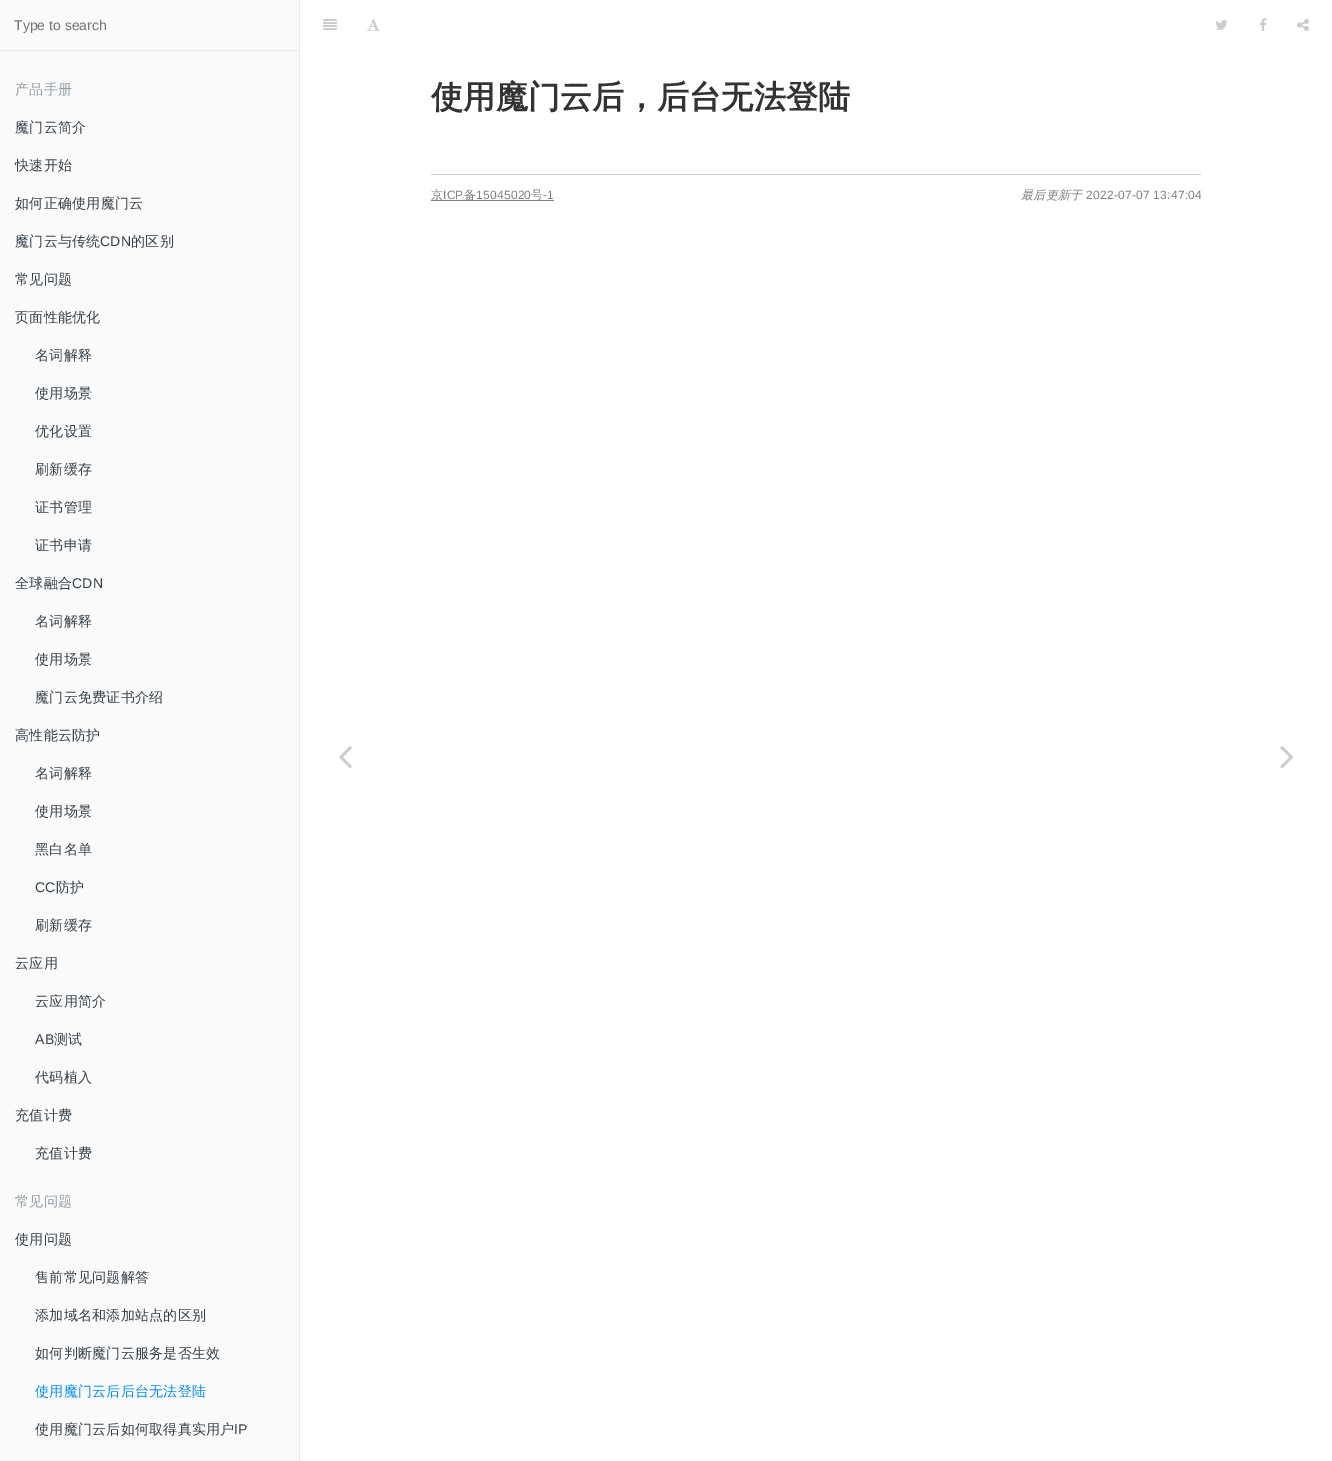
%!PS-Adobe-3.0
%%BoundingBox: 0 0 1332 1461
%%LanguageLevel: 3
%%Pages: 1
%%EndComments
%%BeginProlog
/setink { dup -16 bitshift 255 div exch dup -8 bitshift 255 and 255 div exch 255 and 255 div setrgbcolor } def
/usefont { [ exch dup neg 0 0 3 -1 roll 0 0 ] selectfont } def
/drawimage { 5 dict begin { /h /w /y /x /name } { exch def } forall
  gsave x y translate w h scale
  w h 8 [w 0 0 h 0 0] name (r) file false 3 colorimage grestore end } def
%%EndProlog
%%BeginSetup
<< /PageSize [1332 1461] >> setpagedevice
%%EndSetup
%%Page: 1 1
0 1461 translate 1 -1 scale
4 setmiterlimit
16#FFFFFF setink
0 0 1332 1461 rectfill
[
    [0 0 299 1461 16#FAFAFA]
    [299 0 1 1461 16#E9E9E9]
    [0 50 299 1 16#E9E9E9]
] { aload pop setink rectfill } forall
/LiberationSans-Regular 14 usefont
16#757575 setink
14 30 moveto (Type to search) show
/WenQuanYiZenHei-Medium 14 usefont
16#939DA3 setink
15 94 moveto 0.25 0 (产品手册) ashow
16#364149 setink
15 132 moveto 0.25 0 (魔门云简介) ashow
15 170 moveto 0.25 0 (快速开始) ashow
15 208 moveto 0.25 0 (如何正确使用魔门云) ashow
15 246 moveto 0.25 0 (魔门云与传统) ashow
/LiberationSans-Regular 14 usefont
100 246 moveto 0.25 0 (CDN) ashow
/WenQuanYiZenHei-Medium 14 usefont
131 246 moveto 0.25 0 (的区别) ashow
15 284 moveto 0.25 0 (常见问题) ashow
15 322 moveto 0.25 0 (页面性能优化) ashow
35 360 moveto 0.25 0 (名词解释) ashow
35 398 moveto 0.25 0 (使用场景) ashow
35 436 moveto 0.25 0 (优化设置) ashow
35 474 moveto 0.25 0 (刷新缓存) ashow
35 512 moveto 0.25 0 (证书管理) ashow
35 550 moveto 0.25 0 (证书申请) ashow
15 588 moveto 0.25 0 (全球融合) ashow
/LiberationSans-Regular 14 usefont
72 588 moveto 0.25 0 (CDN) ashow
/WenQuanYiZenHei-Medium 14 usefont
35 626 moveto 0.25 0 (名词解释) ashow
35 664 moveto 0.25 0 (使用场景) ashow
35 702 moveto 0.25 0 (魔门云免费证书介绍) ashow
15 740 moveto 0.25 0 (高性能云防护) ashow
35 778 moveto 0.25 0 (名词解释) ashow
35 816 moveto 0.25 0 (使用场景) ashow
35 854 moveto 0.25 0 (黑白名单) ashow
/LiberationSans-Regular 14 usefont
35 892 moveto 0.25 0 (CC) ashow
/WenQuanYiZenHei-Medium 14 usefont
56 892 moveto 0.25 0 (防护) ashow
35 930 moveto 0.25 0 (刷新缓存) ashow
15 968 moveto 0.25 0 (云应用) ashow
35 1006 moveto 0.25 0 (云应用简介) ashow
/LiberationSans-Regular 14 usefont
35 1044 moveto 0.25 0 (AB) ashow
/WenQuanYiZenHei-Medium 14 usefont
54 1044 moveto 0.25 0 (测试) ashow
35 1082 moveto 0.25 0 (代码植入) ashow
15 1120 moveto 0.25 0 (充值计费) ashow
35 1158 moveto 0.25 0 (充值计费) ashow
16#939DA3 setink
15 1206 moveto 0.25 0 (常见问题) ashow
16#364149 setink
15 1244 moveto 0.25 0 (使用问题) ashow
35 1282 moveto 0.25 0 (售前常见问题解答) ashow
35 1320 moveto 0.25 0 (添加域名和添加站点的区别) ashow
35 1358 moveto 0.25 0 (如何判断魔门云服务是否生效) ashow
16#008CFF setink
35 1396 moveto 0.25 0 (使用魔门云后后台无法登陆) ashow
16#364149 setink
35 1434 moveto 0.25 0 (使用魔门云后如何取得真实用户) ashow
/LiberationSans-Regular 14 usefont
234 1434 moveto 0.25 0 (IP) ashow
(img1.raw) 323 19 14 11 drawimage
(img2.raw) 367 19 13 12 drawimage
(img3.raw) 1215 20 13 10 drawimage
(img4.raw) 1259 18 8 13 drawimage
(img5.raw) 1297 19 12 12 drawimage
/WenQuanYiZenHei-Bold 32 usefont
16#333333 setink
431 108 moveto 0.25 0 (使用魔门云后，后台无法登陆) ashow
16#CCCCCC setink
431 174 770 1 rectfill
16#808080 setink
431 200 123 1 rectfill
/WenQuanYiZenHei-Medium 12 usefont
431 199 moveto 0.25 0 (京) ashow
/LiberationSans-Regular 12 usefont
443 199 moveto 0.25 0 (ICP) ashow
/WenQuanYiZenHei-Medium 12 usefont
464 199 moveto 0.25 0 (备) ashow
/LiberationSans-Regular 12 usefont
476 199 moveto 0.25 0 (15045020) ashow
/WenQuanYiZenHei-Medium 12 usefont
531 199 moveto 0.25 0 (号) ashow
/LiberationSans-Regular 12 usefont
543 199 moveto 0.25 0 (-1) ashow
/WenQuanYiZenHei-MediumItalic 12 usefont
1021 199 moveto 0.25 0 (最后更新于) ashow
/LiberationSans-Regular 12 usefont
1086 199 moveto 0.25 0 (2022-07-07 13:47:04) ashow
(img6.raw) 339 746 13 23 drawimage
(img7.raw) 1280 746 14 23 drawimage
showpage
%%EOF
